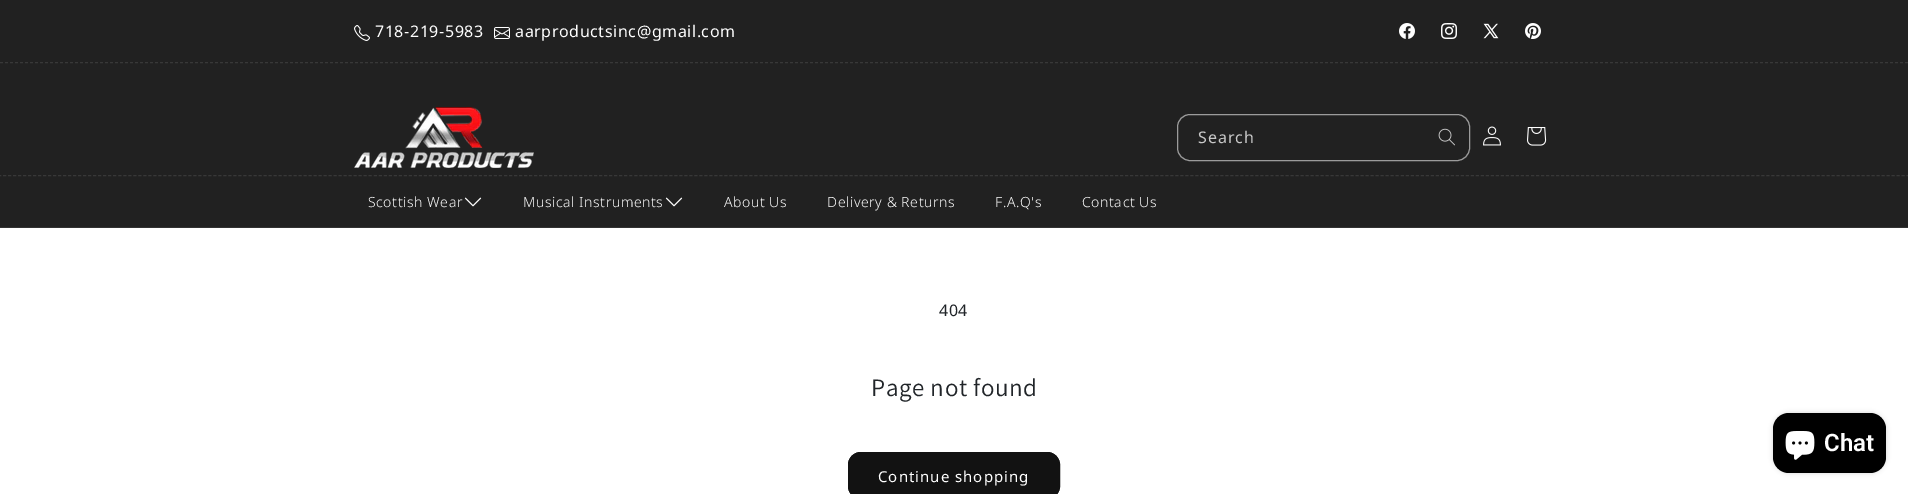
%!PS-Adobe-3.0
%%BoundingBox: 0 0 1908 494
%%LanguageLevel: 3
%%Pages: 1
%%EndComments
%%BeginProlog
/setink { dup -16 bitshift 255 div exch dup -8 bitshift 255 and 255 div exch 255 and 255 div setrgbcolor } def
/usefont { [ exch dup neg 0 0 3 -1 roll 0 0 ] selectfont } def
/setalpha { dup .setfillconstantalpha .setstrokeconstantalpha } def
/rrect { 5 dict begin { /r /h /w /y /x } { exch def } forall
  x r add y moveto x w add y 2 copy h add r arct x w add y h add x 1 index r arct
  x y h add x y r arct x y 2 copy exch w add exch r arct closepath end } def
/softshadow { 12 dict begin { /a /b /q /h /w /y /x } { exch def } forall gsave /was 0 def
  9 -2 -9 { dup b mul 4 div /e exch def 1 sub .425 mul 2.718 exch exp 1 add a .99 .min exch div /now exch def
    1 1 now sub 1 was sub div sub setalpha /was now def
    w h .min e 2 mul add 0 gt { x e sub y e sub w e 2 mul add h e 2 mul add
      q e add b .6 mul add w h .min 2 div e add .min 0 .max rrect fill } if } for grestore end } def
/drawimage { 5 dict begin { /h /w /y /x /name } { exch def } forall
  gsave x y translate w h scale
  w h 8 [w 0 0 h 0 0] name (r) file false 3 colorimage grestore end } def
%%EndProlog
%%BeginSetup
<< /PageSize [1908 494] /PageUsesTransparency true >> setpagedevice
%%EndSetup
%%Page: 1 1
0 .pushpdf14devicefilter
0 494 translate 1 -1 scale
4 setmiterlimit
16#FFFFFF setink
0 0 1908 494 rectfill
16#212121 setink
0 0 1908 227 rectfill
16#383838 setink
[3 2] 0 setdash
0 62.5 moveto 1908 62.5 lineto stroke
(img1.raw) 354 25 16 16 drawimage
/NotoSans-Regular 16 usefont
16#FFFFFF setink
375 37 moveto 0.6 0 (718-219-5983) ashow
(img2.raw) 494 27 16 12 drawimage
515 37 moveto 0.6 0 (aarproductsinc@gmail.com) ashow
(img3.raw) 1399 23 16 16 drawimage
(img4.raw) 1441 23 16 16 drawimage
(img5.raw) 1483 23 16 16 drawimage
(img6.raw) 1525 23 16 16 drawimage
16#333333 setink
0 227 1908 1 rectfill
(img7.raw) 354 107 180 61 drawimage
(img8.raw) 1438 128 17 18 drawimage
16#9B9B9B setink
[] 0 setdash
1177.5 114.5 292 46 12.5 rrect stroke
16#C8C8C8 setink
1198 143 moveto 1 0 (Search) ashow
(img9.raw) 1483 126 18 20 drawimage
(img10.raw) 1527 127 20 19 drawimage
16#383838 setink
[3 2.01] 0 setdash
-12 175.5 moveto 1908 175.5 lineto stroke
/NotoSans-Light 14 usefont
16#FFFFFF setink
368 207 moveto 0.6 0 (Scottish Wear) ashow
(img11.raw) 464 197 18 10 drawimage
523 207 moveto 0.6 0 (Musical Instruments) ashow
(img11.raw) 665 197 18 10 drawimage
724 207 moveto 0.6 0 (About Us) ashow
827 207 moveto 0.6 0 (Delivery & Returns) ashow
995 207 moveto 0.6 0 (F.A.Q's) ashow
1082 207 moveto 0.6 0 (Contact Us) ashow
/NotoSans-Regular 16 usefont
16#212529 setink
939 316 moveto 0.6 0 (404) ashow
/Assistant-Regular 25 usefont
871 396 moveto 0.6 0 (Page not found) ashow
16#121212 setink
848 452 212 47 13 rrect fill
[] 0 setdash
848.5 452.5 211 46 12.5 rrect stroke
/NotoSans-Regular 15 usefont
16#FFFFFF setink
878 482 moveto 1 0 (Continue shopping) ashow
16#000000 setink
1773 413 113 60 16 2.5 0.15 softshadow
1773 413 113 60 16 rrect fill
(img12.raw) 1785 431 30 29 drawimage
/Roboto-SemiBold 24 usefont
16#FFFFFF setink
1824 451 moveto (Chat) show
.poppdf14devicefilter showpage
%%EOF
